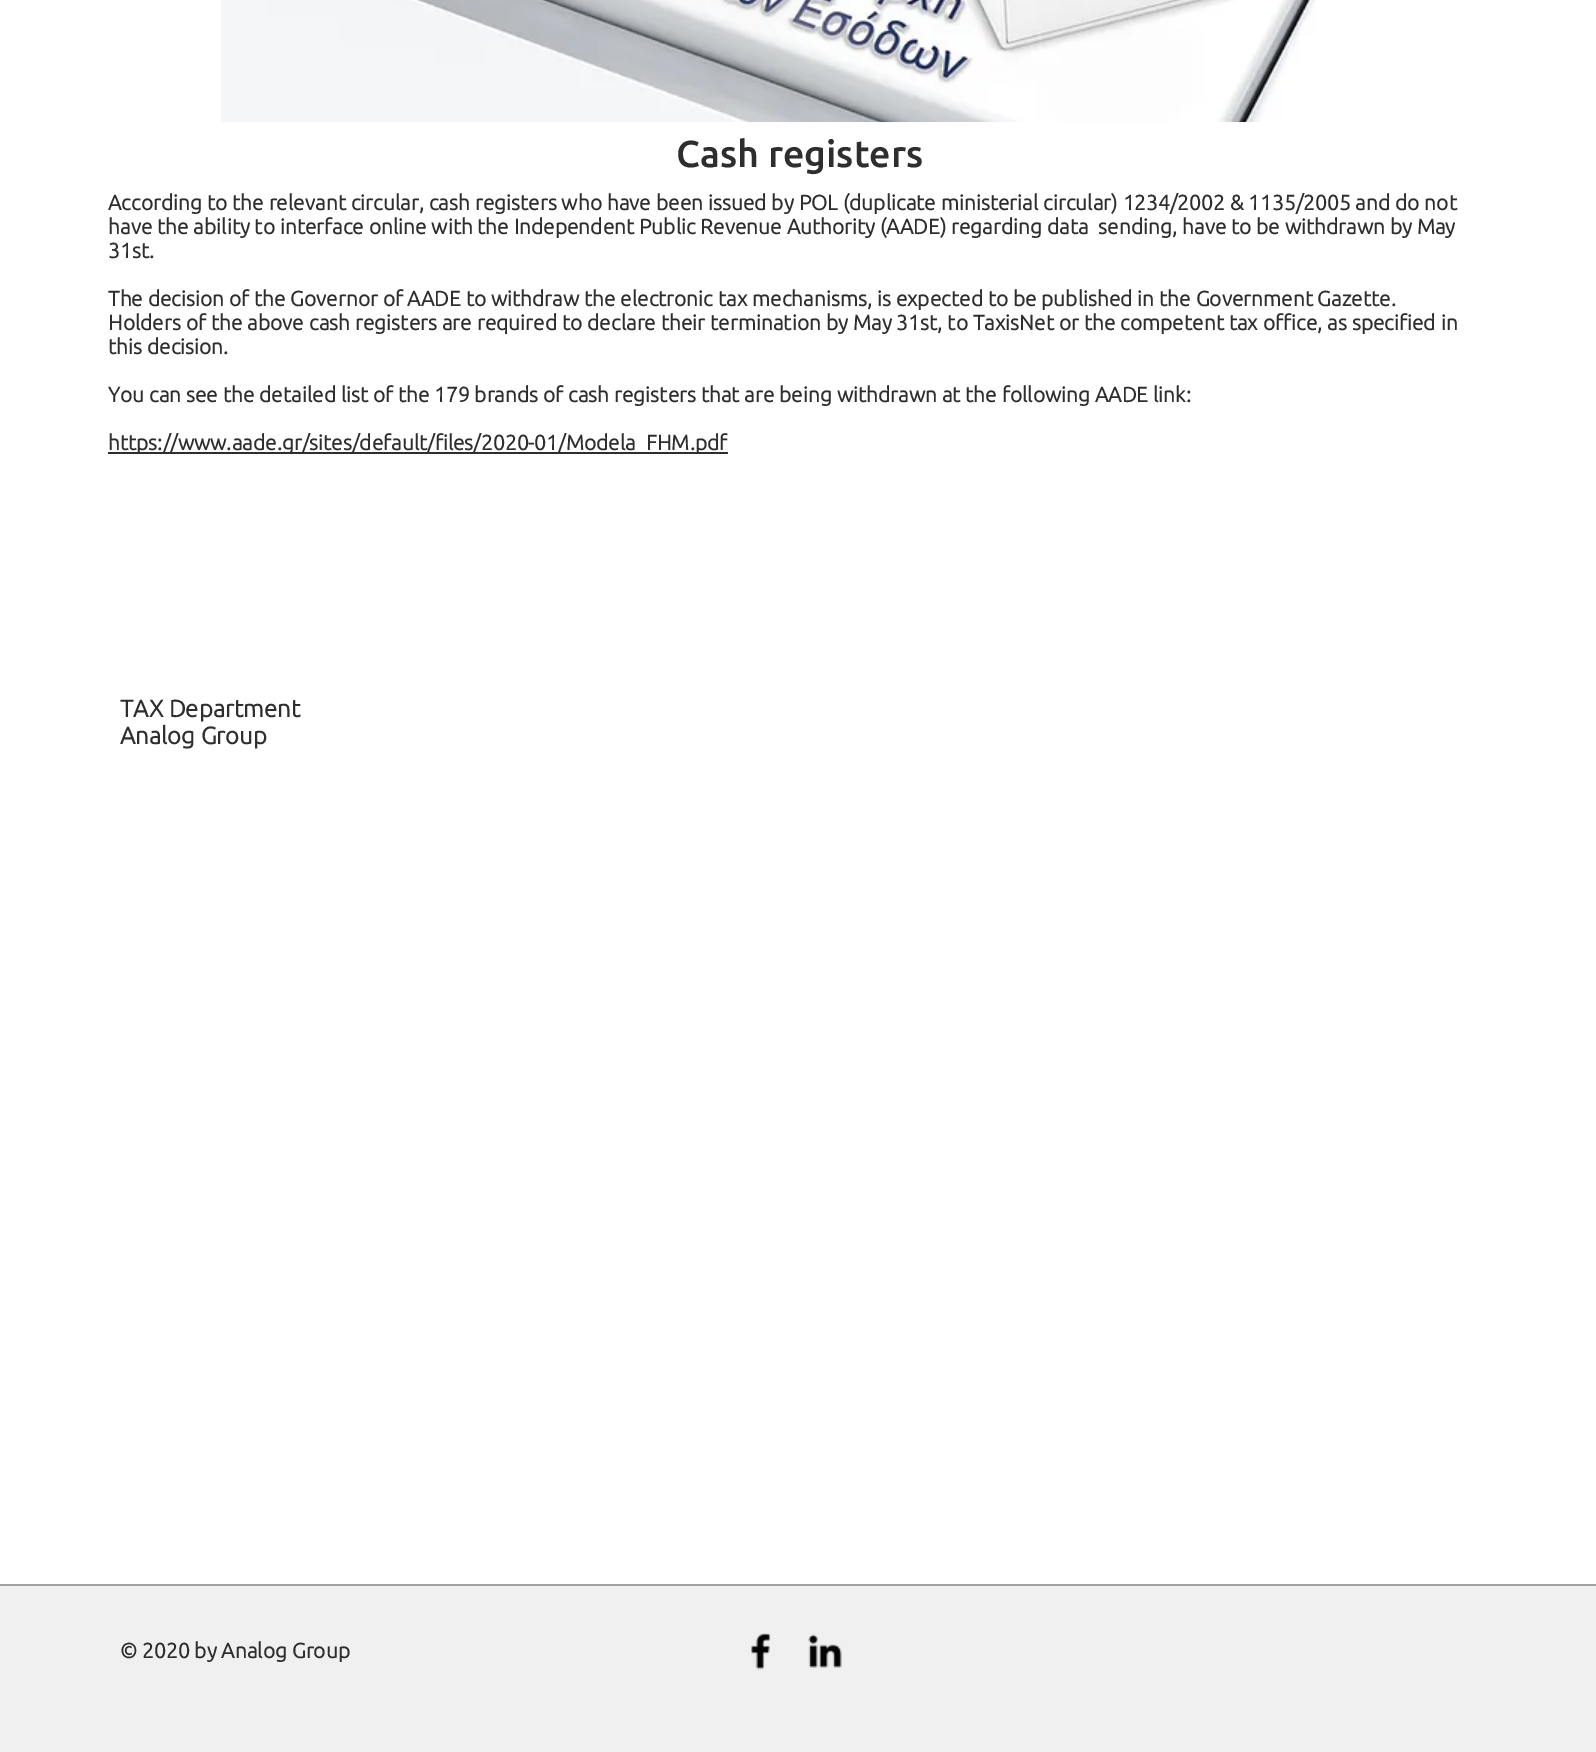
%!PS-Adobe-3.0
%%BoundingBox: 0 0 1596 1752
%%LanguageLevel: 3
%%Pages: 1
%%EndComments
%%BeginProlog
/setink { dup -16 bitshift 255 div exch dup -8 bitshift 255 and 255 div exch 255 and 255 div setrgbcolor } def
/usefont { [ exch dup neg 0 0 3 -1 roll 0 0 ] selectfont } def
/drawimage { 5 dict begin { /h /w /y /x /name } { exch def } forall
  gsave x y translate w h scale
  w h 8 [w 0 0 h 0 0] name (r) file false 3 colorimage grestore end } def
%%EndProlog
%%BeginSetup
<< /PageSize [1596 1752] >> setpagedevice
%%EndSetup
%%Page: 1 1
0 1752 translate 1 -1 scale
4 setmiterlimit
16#FFFFFF setink
0 0 1596 1752 rectfill
(img1.raw) 221 0 1095 123 drawimage
/Ubuntu-Medium 37.5 usefont
16#2F2E2E setink
676 167 moveto (Cash registers) show
/Ubuntu-Bold 21 usefont
108 210 moveto 0.1 0 32 (According to the relevant circular, cash registers who have been issued by POL \(duplicate ministerial circular\) 1234/2002 & 1135/2005 and do not) widthshow
[
    [(have the ability to interface online with the Independent Public Revenue Authority \(AADE\) regarding data  sending, have to be withdrawn by May) 108 234]
    [(31st.) 108 258]
    [(The decision of the Governor of AADE to withdraw the electronic tax mechanisms, is expected to be published in the Government Gazette.) 108 306]
] { aload pop moveto show } forall
108 330 moveto 0.15 0 32 (Holders of the above cash registers are required to declare their termination by May 31st, to TaxisNet or the competent tax office, as specified in) widthshow
108 354 moveto (this decision.) show
108 402 moveto (You can see the detailed list of the 179 brands of cash registers that are being withdrawn at the following AADE link:) show
108 452 620 2 rectfill
108 450 moveto (https://www.aade.gr/sites/default/files/2020-01/Modela_FHM.pdf) show
/Ubuntu-Bold 24 usefont
120 717 moveto (TAX Department) show
120 744 moveto (Analog Group) show
16#F0F0F0 setink
0 1586 1596 166 rectfill
16#A0A09F setink
0 1584 1596 2 rectfill
/Ubuntu-Bold 21 usefont
16#2F2E2E setink
120 1658 moveto (© 2020 by Analog Group) show
(img2.raw) 751 1633 20 37 drawimage
(img3.raw) 808 1634 34 34 drawimage
showpage
%%EOF
